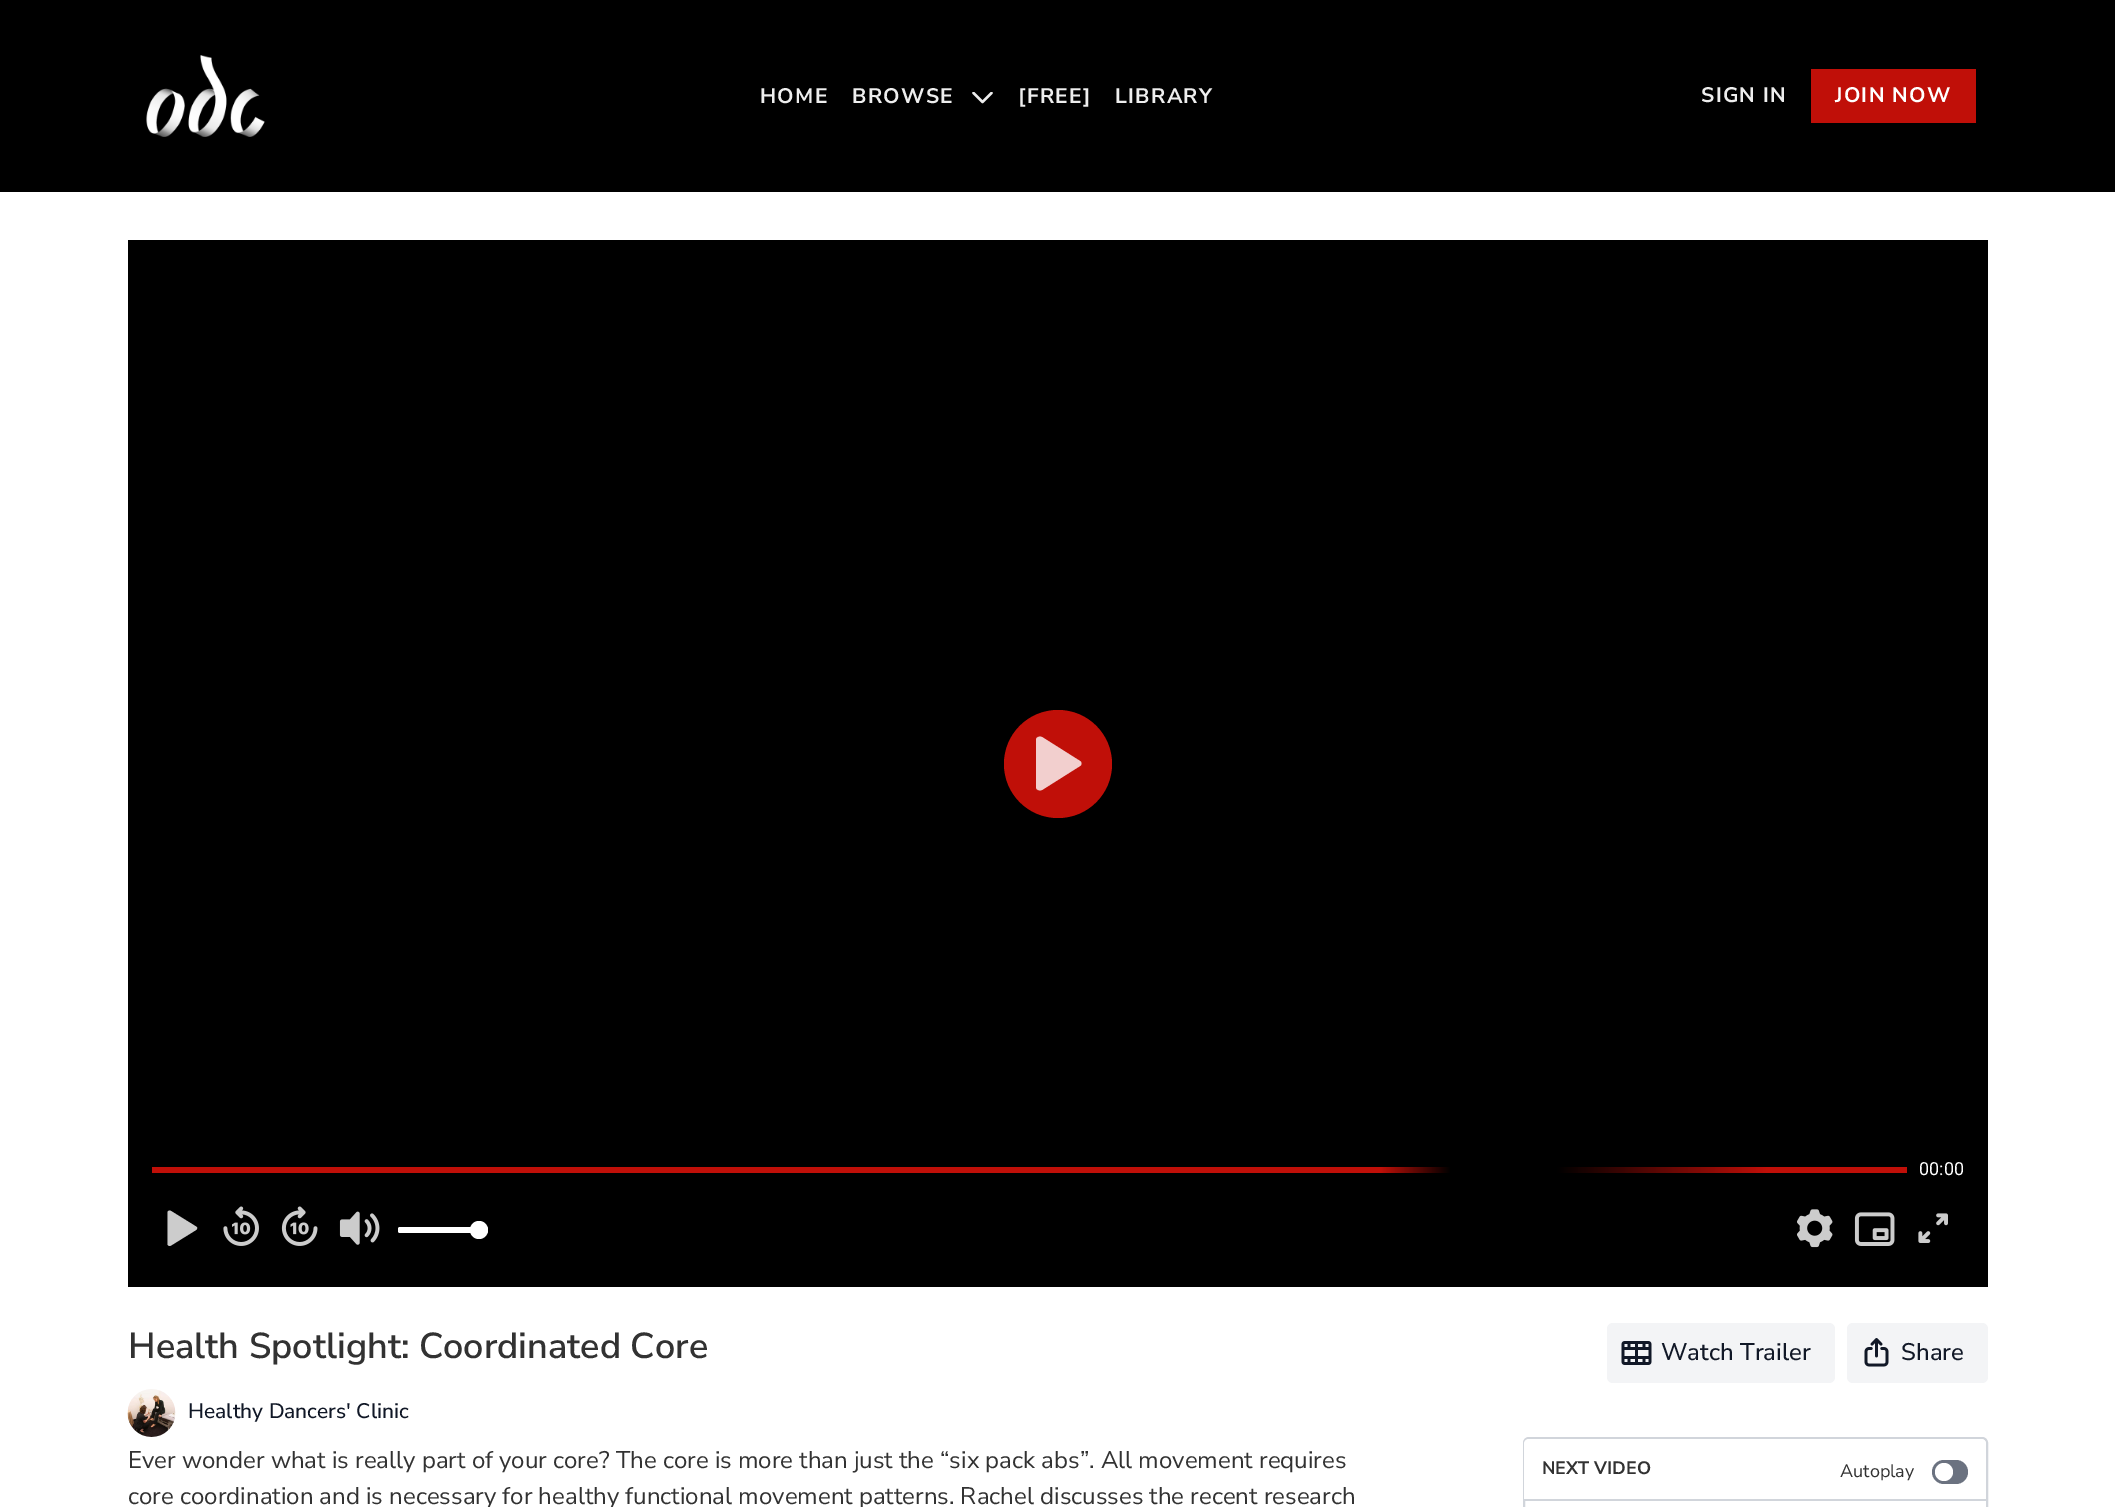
%!PS-Adobe-3.0
%%BoundingBox: 0 0 2115 1507
%%LanguageLevel: 3
%%Pages: 1
%%EndComments
%%BeginProlog
/setink { dup -16 bitshift 255 div exch dup -8 bitshift 255 and 255 div exch 255 and 255 div setrgbcolor } def
/usefont { [ exch dup neg 0 0 3 -1 roll 0 0 ] selectfont } def
/disc { newpath 0 360 arc closepath } def
/rrect { 5 dict begin { /r /h /w /y /x } { exch def } forall
  x r add y moveto x w add y 2 copy h add r arct x w add y h add x 1 index r arct
  x y h add x y r arct x y 2 copy exch w add exch r arct closepath end } def
/drawimage { 5 dict begin { /h /w /y /x /name } { exch def } forall
  gsave x y translate w h scale
  w h 8 [w 0 0 h 0 0] name (r) file false 3 colorimage grestore end } def
%%EndProlog
%%BeginSetup
<< /PageSize [2115 1507] >> setpagedevice
%%EndSetup
%%Page: 1 1
0 1507 translate 1 -1 scale
4 setmiterlimit
16#FFFFFF setink
0 0 2115 1507 rectfill
16#000000 setink
0 0 2115 192 rectfill
(img1.raw) 146 55 119 82 drawimage
/NunitoSans-Bold 21 usefont
16#EEEEEE setink
760 103 moveto 1.25 0 (HOME) ashow
852 103 moveto 1.25 0 (BROWSE) ashow
(img2.raw) 972 92 21 12 drawimage
1018 103 moveto 1.25 0 ([FREE]) ashow
1115 103 moveto 1.25 0 (LIBRARY) ashow
1701 102 moveto 1.25 0 (SIGN IN) ashow
16#C00F08 setink
1811 69 165 54 rectfill
16#FFFFFF setink
1835 102 moveto 1.25 0 (JOIN NOW) ashow
16#000000 setink
128 240 1860 1047 rectfill
16#C00F08 setink
1058 764 54 disc fill
16#F2CFCE setink
1042 737 moveto 1039 736 1036 737 1036 740 curveto 1036 787 lineto 1036 790 1039 791 1042 790 curveto 1080 766 lineto 1082 765 1082 762 1080 761 curveto closepath fill
gsave 152 1167 1755 6 3 rrect clip newpath
<< /ShadingType 2 /ColorSpace /DeviceRGB /Coords [152 1173 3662 1173] /Extend [true true] /Function << /FunctionType 3 /Domain [0 1] /Functions [<< /FunctionType 2 /Domain [0 1] /C0 [0.753 0.059 0.031] /C1 [0.753 0.059 0.031] /N 1 >> << /FunctionType 2 /Domain [0 1] /C0 [0.753 0.059 0.031] /C1 [0 0 0] /N 1 >> << /FunctionType 2 /Domain [0 1] /C0 [0 0 0] /C1 [0 0 0] /N 1 >> << /FunctionType 2 /Domain [0 1] /C0 [0 0 0] /C1 [0.753 0.059 0.031] /N 1 >> << /FunctionType 2 /Domain [0 1] /C0 [0.753 0.059 0.031] /C1 [0.753 0.059 0.031] /N 1 >>] /Bounds [0.35 0.37 0.4 0.46] /Encode [0 1 0 1 0 1 0 1 0 1] >> >> shfill grestore
/Roboto-Regular 18 usefont
16#FFFFFF setink
1919 1175 moveto (00:00) show
16#CCCCCC setink
171 1211 moveto 169.5 1210 167.5 1211 167.5 1212.5 curveto 167.5 1244 lineto 167.5 1245.5 169.5 1246.5 171 1245.5 curveto 196 1230 lineto 197.5 1229 197.5 1227 196 1226.5 curveto closepath fill
(img3.raw) 223 1206 36 40 drawimage
(img4.raw) 281 1206 37 40 drawimage
(img5.raw) 339 1211 41 34 drawimage
16#FFFFFF setink
398 1227 90 6 2 rrect fill
479 1230 9 disc fill
(img6.raw) 1797 1209 36 39 drawimage
(img7.raw) 1854 1212 41 34 drawimage
(img8.raw) 1918 1213 30 30 drawimage
/NunitoSans-SemiBold 36 usefont
16#323232 setink
128 1358 moveto (Health Spotlight: Coordinated Core) show
16#F3F4F6 setink
1607 1323 228 60 6 rrect fill
(img9.raw) 1621 1341 31 24 drawimage
/NunitoSans-Medium 24 usefont
16#111827 setink
1661 1360 moveto (Watch Trailer) show
16#F3F4F6 setink
1847 1323 141 60 6 rrect fill
(img10.raw) 1864 1338 25 29 drawimage
16#111827 setink
1901 1360 moveto (Share) show
(img11.raw) 127 1389 49 48 drawimage
/NunitoSans-Medium 21 usefont
188 1418 moveto (Healthy Dancers' Clinic) show
/NunitoSans-Regular 24 usefont
16#323232 setink
128 1468 moveto (Ever wonder what is really part of your core? The core is more than just the “six pack abs”. All movement requires) show
128 1504 moveto (core coordination and is necessary for healthy functional movement patterns. Rachel discusses the recent research) show
16#D1D5DB setink
2 setlinewidth
1524 1438 463 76 5 rrect stroke
16#FFFFFF setink
1529 1439 moveto 1981 1439 lineto 1984 1439 1986 1441 1986 1444 curveto 1986 1499 lineto 1524 1499 lineto 1524 1444 lineto 1524 1441 1526 1439 1529 1439 curveto closepath fill
16#D1D5DB setink
1524 1499 462 2 rectfill
/NunitoSans-Bold 18 usefont
16#323232 setink
1542 1474 moveto (NEXT VIDEO) show
/NunitoSans-Regular 18 usefont
1840 1477 moveto (Autoplay) show
16#6B7280 setink
1932 1460 36 24 12 rrect fill
16#FFFFFF setink
1944 1472 9 disc fill
showpage
%%EOF
